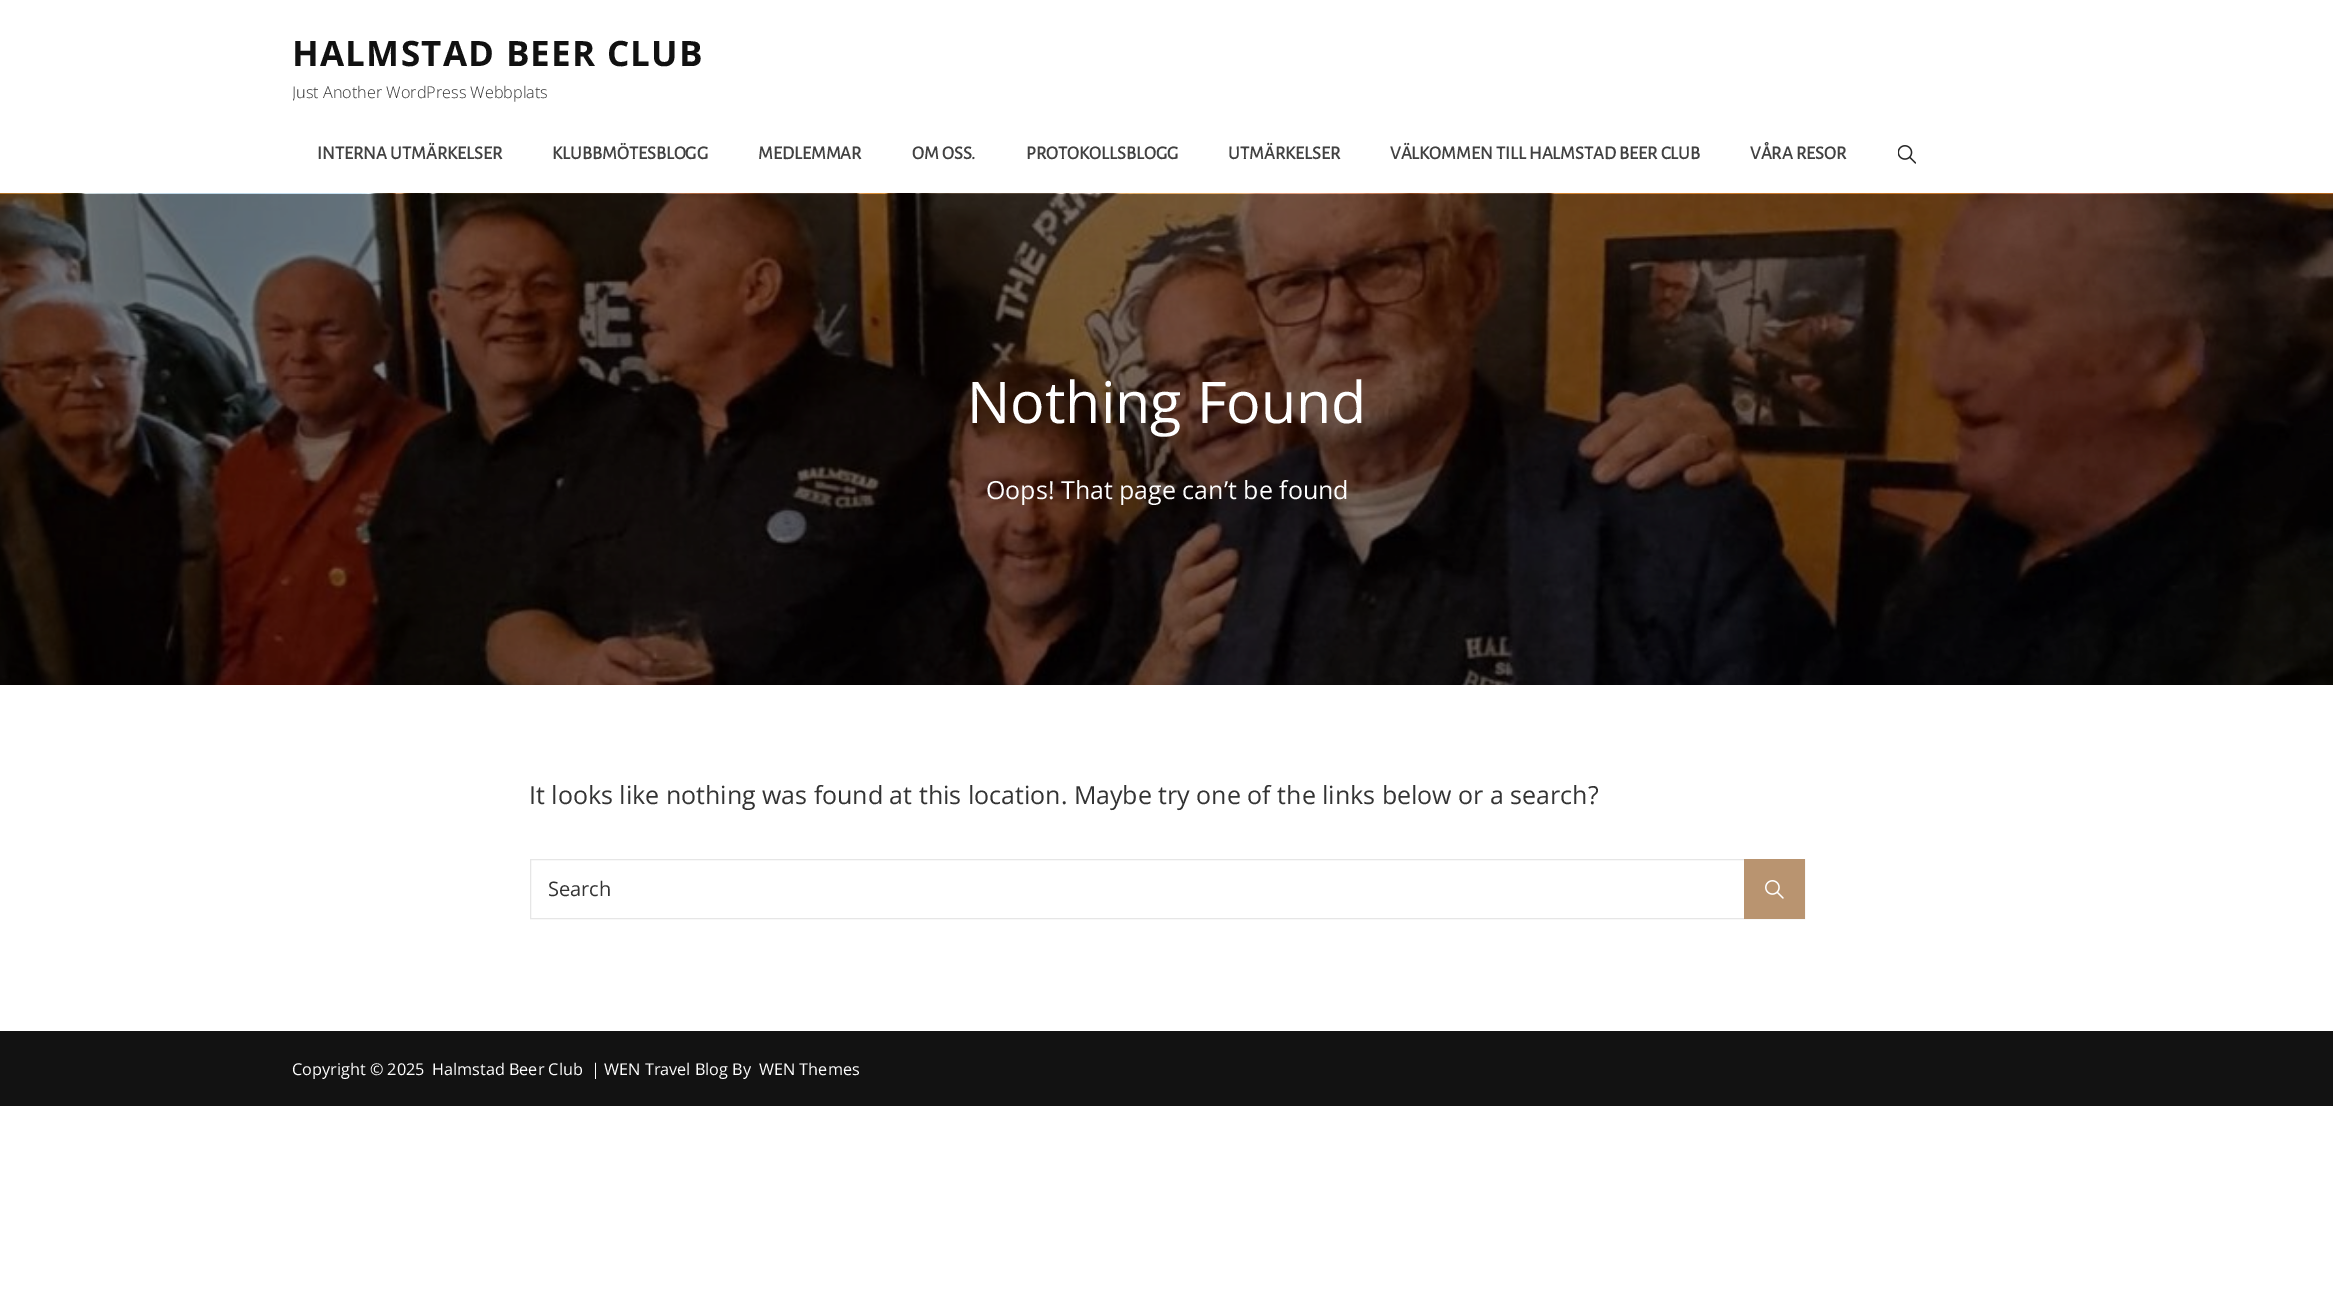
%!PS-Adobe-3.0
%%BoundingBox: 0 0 2333 1313
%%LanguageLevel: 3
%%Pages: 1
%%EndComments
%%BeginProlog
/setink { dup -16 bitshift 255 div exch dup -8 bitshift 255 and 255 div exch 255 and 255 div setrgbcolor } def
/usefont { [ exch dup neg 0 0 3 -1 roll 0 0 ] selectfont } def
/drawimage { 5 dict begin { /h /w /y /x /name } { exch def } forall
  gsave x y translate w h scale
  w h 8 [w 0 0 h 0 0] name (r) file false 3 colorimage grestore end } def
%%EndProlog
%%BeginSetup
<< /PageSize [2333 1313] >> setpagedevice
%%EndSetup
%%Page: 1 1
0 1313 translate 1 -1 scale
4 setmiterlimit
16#FFFFFF setink
0 0 2333 1313 rectfill
/OpenSans-Bold 35 usefont
16#111111 setink
292 66 moveto 1.25 0 (HALMSTAD BEER CLUB) ashow
gsave
293 26 411 79 rectclip
/OpenSans-Light 16.25 usefont
16#333333 setink
292 98 moveto (Just Another WordPress Webbplats) show
grestore
/AlegreyaSans-Bold 18.75 usefont
16#414141 setink
[
    [(INTERNA UTMÄRKELSER) 317 159]
    [(KLUBBMÖTESBLOGG) 552 159]
    [(MEDLEMMAR) 758 159]
    [(OM OSS.) 912 159]
    [(PROTOKOLLSBLOGG) 1026 159]
    [(UTMÄRKELSER) 1228 159]
    [(VÄLKOMMEN TILL HALMSTAD BEER CLUB) 1390 159]
    [(VÅRA RESOR) 1750 159]
] { aload pop moveto show } forall
(img1.raw) 1898 145 18 19 drawimage
(img2.raw) 0 193 2333 492 drawimage
/OpenSans-Regular 57.5 usefont
16#FFFFFF setink
967 423 moveto (Nothing Found) show
/OpenSans-Regular 25 usefont
986 499 moveto (Oops! That page can’t be found) show
16#333333 setink
529 804 moveto (It looks like nothing was found at this location. Maybe try one of the links below or a search?) show
16#E6E6E6 setink
530.5 859.5 1274 59 rectstroke
/OpenSans-Regular 20 usefont
16#333333 setink
548 896 moveto (Search) show
16#B99470 setink
1744 859 61 60 rectfill
(img3.raw) 1765 880 19 19 drawimage
16#121212 setink
0 1031 2333 75 rectfill
/OpenSans-Regular 16.25 usefont
16#FFFFFF setink
[
    [(Copyright © 2025) 292 1075]
    [(Halmstad Beer Club) 432 1075]
    [(| WEN Travel Blog By) 591 1075]
    [(WEN Themes) 759 1075]
] { aload pop moveto show } forall
showpage
%%EOF
